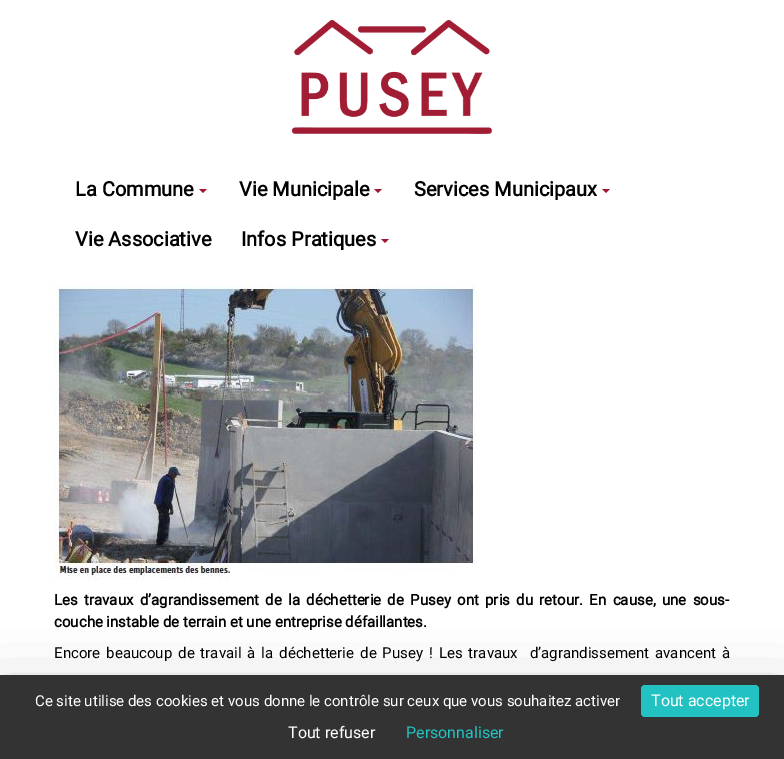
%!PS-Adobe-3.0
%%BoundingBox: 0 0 784 759
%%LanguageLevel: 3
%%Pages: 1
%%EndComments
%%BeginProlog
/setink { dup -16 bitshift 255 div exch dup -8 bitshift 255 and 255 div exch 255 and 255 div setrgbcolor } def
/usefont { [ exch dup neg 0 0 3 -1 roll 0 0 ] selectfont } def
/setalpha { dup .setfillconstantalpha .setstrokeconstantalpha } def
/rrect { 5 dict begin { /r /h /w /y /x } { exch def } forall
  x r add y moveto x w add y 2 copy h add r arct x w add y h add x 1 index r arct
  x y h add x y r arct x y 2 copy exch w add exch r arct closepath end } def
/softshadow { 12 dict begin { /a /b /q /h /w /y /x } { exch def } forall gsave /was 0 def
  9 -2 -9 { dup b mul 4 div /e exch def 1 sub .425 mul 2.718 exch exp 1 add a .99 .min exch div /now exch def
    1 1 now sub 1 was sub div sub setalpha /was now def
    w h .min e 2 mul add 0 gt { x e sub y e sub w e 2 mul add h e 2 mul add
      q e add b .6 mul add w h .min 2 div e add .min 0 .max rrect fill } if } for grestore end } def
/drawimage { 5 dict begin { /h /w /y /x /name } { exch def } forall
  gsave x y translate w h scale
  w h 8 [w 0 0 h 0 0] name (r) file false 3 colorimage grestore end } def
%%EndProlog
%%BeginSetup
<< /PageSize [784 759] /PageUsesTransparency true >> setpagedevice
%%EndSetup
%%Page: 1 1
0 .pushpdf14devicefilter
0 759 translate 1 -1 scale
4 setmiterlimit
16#FFFFFF setink
0 0 784 759 rectfill
(img1.raw) 292 20 200 114 drawimage
/Roboto-Bold 20 usefont
16#000000 setink
75 196 moveto (La Commune) show
16#A11532 setink
199 189 moveto 207 189 lineto 203 193 lineto closepath fill
16#000000 setink
239 196 moveto (Vie Municipale) show
16#A11532 setink
374 189 moveto 382 189 lineto 378 193 lineto closepath fill
16#000000 setink
414 196 moveto (Services Municipaux) show
16#A11532 setink
602 189 moveto 610 189 lineto 606 193 lineto closepath fill
16#000000 setink
75 246 moveto (Vie Associative) show
241 246 moveto (Infos Pratiques) show
16#A11532 setink
381 239 moveto 389 239 lineto 385 243 lineto closepath fill
(img2.raw) 54 284 423 296 drawimage
/Roboto-Bold 15 usefont
16#000000 setink
54 605 moveto 2.6 0 32 (Les travaux d’agrandissement de la déchetterie de Pusey ont pris du retour. En cause, une sous-) widthshow
54 627 moveto (couche instable de terrain et une entreprise défaillantes.) show
/Roboto-Regular 15 usefont
54 658 moveto 2.25 0 32 (Encore beaucoup de travail à la déchetterie de Pusey ! Les travaux  d’agrandissement avancent à) widthshow
0 695 784 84 0 30 0.25 softshadow
16#333333 setink
0 675 784 84 rectfill
16#FFFFFF setink
35 706 moveto (Ce site utilise des cookies et vous donne le contrôle sur ceux que vous souhaitez activer) show
16#23C2C2 setink
641 685 118 32 4 rrect fill
/Roboto-Regular 16 usefont
16#FFFFFF setink
651 706 moveto (Tout accepter) show
288 738 moveto (Tout refuser) show
16#23C2C2 setink
406 738 moveto (Personnaliser) show
.poppdf14devicefilter showpage
%%EOF
